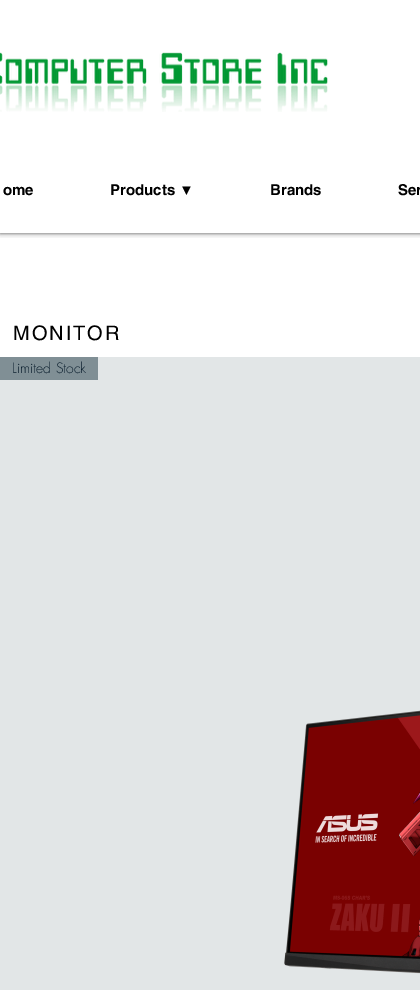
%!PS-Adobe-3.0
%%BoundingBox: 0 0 420 990
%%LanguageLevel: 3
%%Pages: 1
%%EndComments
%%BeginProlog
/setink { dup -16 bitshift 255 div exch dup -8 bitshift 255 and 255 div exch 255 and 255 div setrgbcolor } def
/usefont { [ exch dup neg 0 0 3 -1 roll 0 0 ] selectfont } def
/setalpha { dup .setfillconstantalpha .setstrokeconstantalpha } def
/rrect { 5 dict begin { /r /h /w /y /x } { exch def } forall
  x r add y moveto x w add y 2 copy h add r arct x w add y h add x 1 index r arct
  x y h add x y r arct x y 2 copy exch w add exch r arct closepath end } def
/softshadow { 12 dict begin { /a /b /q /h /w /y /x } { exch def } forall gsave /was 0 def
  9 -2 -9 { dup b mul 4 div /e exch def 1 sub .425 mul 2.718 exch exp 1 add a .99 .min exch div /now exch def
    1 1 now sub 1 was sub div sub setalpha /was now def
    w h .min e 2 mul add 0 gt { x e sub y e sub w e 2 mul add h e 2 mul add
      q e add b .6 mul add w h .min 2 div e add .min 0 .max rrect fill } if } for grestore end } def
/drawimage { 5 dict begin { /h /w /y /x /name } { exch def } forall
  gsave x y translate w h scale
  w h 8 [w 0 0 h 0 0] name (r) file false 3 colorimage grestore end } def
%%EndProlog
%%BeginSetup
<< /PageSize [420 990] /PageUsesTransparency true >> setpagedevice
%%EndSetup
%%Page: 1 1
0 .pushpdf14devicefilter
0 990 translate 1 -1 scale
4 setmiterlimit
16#FFFFFF setink
0 0 420 990 rectfill
gsave
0 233 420 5 rectclip
16#000000 setink
0 0 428 233 0 2.5 0.7 softshadow
grestore
(img1.raw) 0 52 328 60 drawimage
/helvetica-Bold 15 usefont
16#000000 setink
3 195 moveto (ome) show
110 195 moveto (Products) show
/LiberationSans-Regular 15 usefont
179 195 moveto (▼) show
/helvetica-Bold 15 usefont
270 195 moveto (Brands) show
398 195 moveto (Ser) show
/helvetica-Regular 20 usefont
13 340 moveto 2 0 (MONITOR) ashow
16#E2E6E7 setink
0 357 420 633 rectfill
16#808F95 setink
0 357 98 23 rectfill
/futura-Light 14 usefont
16#0D2130 setink
12 373 moveto (Limited Stock) show
(img2.raw) 284 710 136 264 drawimage
.poppdf14devicefilter showpage
%%EOF
